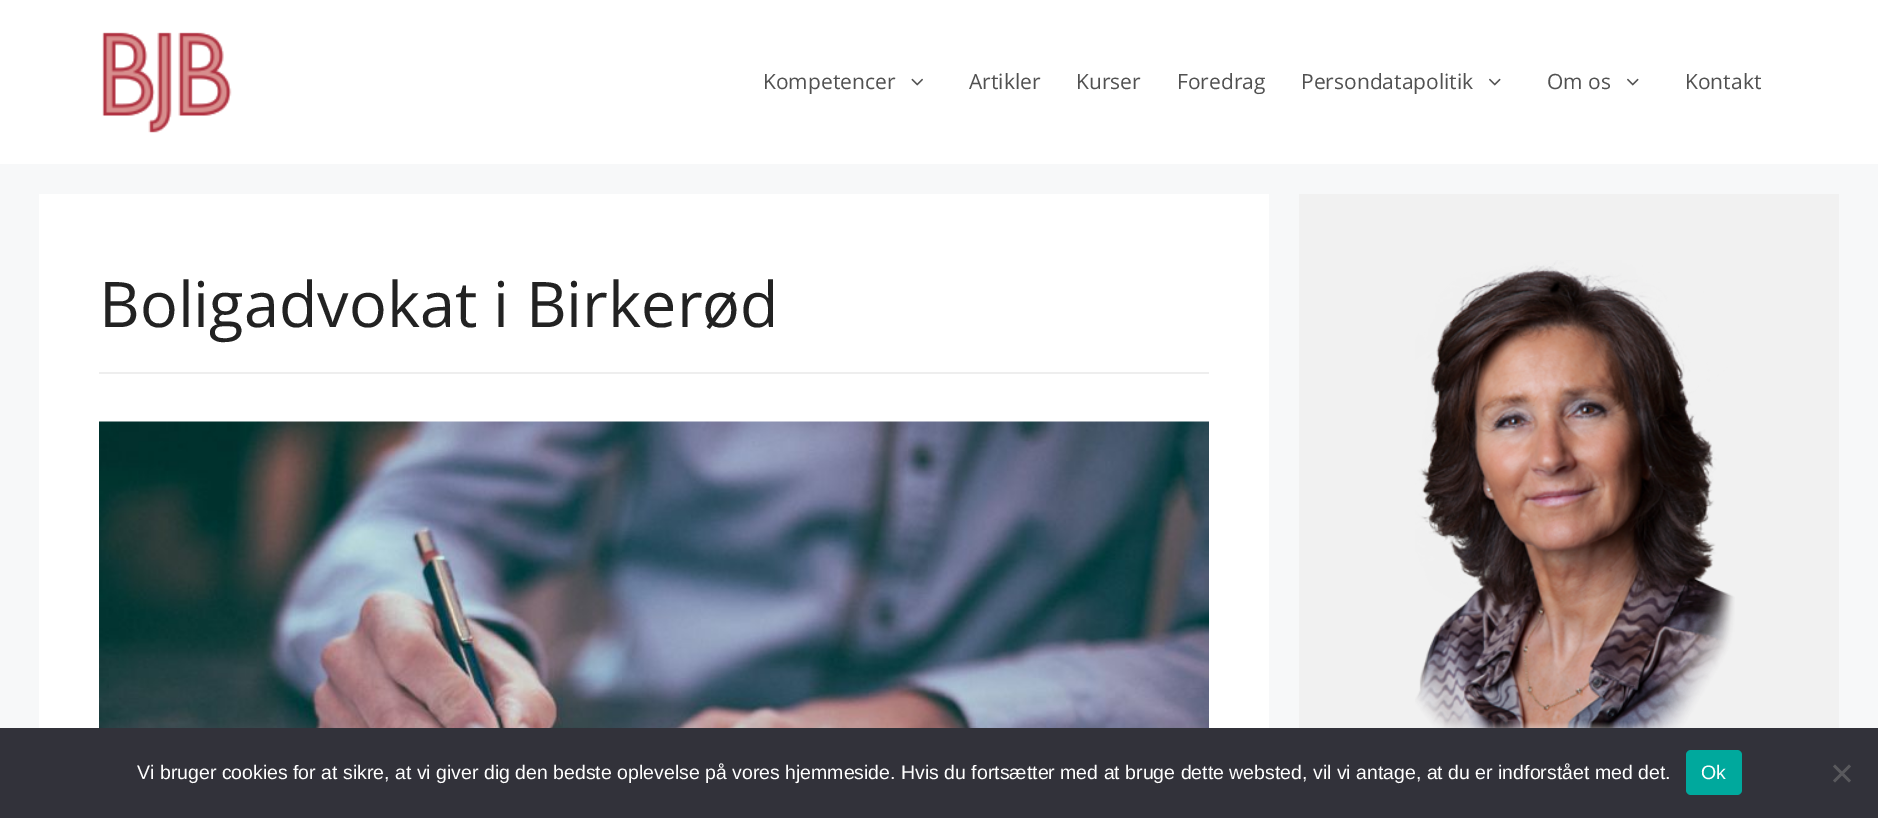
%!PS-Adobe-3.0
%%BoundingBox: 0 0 1878 818
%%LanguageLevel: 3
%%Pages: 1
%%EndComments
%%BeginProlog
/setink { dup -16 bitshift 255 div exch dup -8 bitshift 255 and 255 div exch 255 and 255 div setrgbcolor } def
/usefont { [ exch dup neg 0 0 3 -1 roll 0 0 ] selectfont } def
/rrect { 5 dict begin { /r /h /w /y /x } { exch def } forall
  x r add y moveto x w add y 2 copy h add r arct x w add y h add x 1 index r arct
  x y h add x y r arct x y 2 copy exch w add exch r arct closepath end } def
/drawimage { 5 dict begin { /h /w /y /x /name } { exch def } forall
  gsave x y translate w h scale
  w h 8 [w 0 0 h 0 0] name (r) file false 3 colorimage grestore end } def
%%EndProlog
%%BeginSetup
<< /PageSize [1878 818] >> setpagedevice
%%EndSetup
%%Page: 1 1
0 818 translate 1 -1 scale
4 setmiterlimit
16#F7F8F9 setink
0 0 1878 818 rectfill
16#FFFFFF setink
0 0 1878 164 rectfill
(img1.raw) 102 32 130 101 drawimage
/OpenSans-Regular 21 usefont
16#515151 setink
763 89 moveto (Kompetencer) show
(img2.raw) 911 78 12 8 drawimage
[
    [(Artikler) 969 89]
    [(Kurser) 1076 89]
    [(Foredrag) 1177 89]
    [(Persondatapolitik) 1301 89]
] { aload pop moveto show } forall
(img3.raw) 1489 78 12 8 drawimage
1547 89 moveto (Om os) show
(img3.raw) 1627 78 12 8 drawimage
1685 89 moveto (Kontakt) show
16#FFFFFF setink
39 194 1230 534 rectfill
16#EEEEEE setink
99 372 1110 2 rectfill
/OpenSans-Regular 63 usefont
16#222222 setink
99 327 moveto (Boligadvokat i Birkerød) show
(img4.raw) 99 421 1110 307 drawimage
16#F1F1F1 setink
1299 194 540 534 rectfill
(img5.raw) 1415 260 320 468 drawimage
16#32323A setink
0 728 1878 90 rectfill
/LiberationSans-Regular 19.5 usefont
16#FFFFFF setink
137 779 moveto (Vi bruger cookies for at sikre, at vi giver dig den bedste oplevelse på vores hjemmeside. Hvis du fortsætter med at bruge dette websted, vil vi antage, at du er indforstået med det.) show
16#00A99D setink
1686 750 56 45 5 rrect fill
16#FFFFFF setink
1701 779 moveto (Ok) show
16#59595D setink
1849 764.5 moveto 1851 766.5 lineto 1835 782.5 lineto 1833 780.5 lineto closepath fill
1833 766.5 moveto 1835 764.5 lineto 1851 780.5 lineto 1849 782.5 lineto closepath fill
showpage
%%EOF
